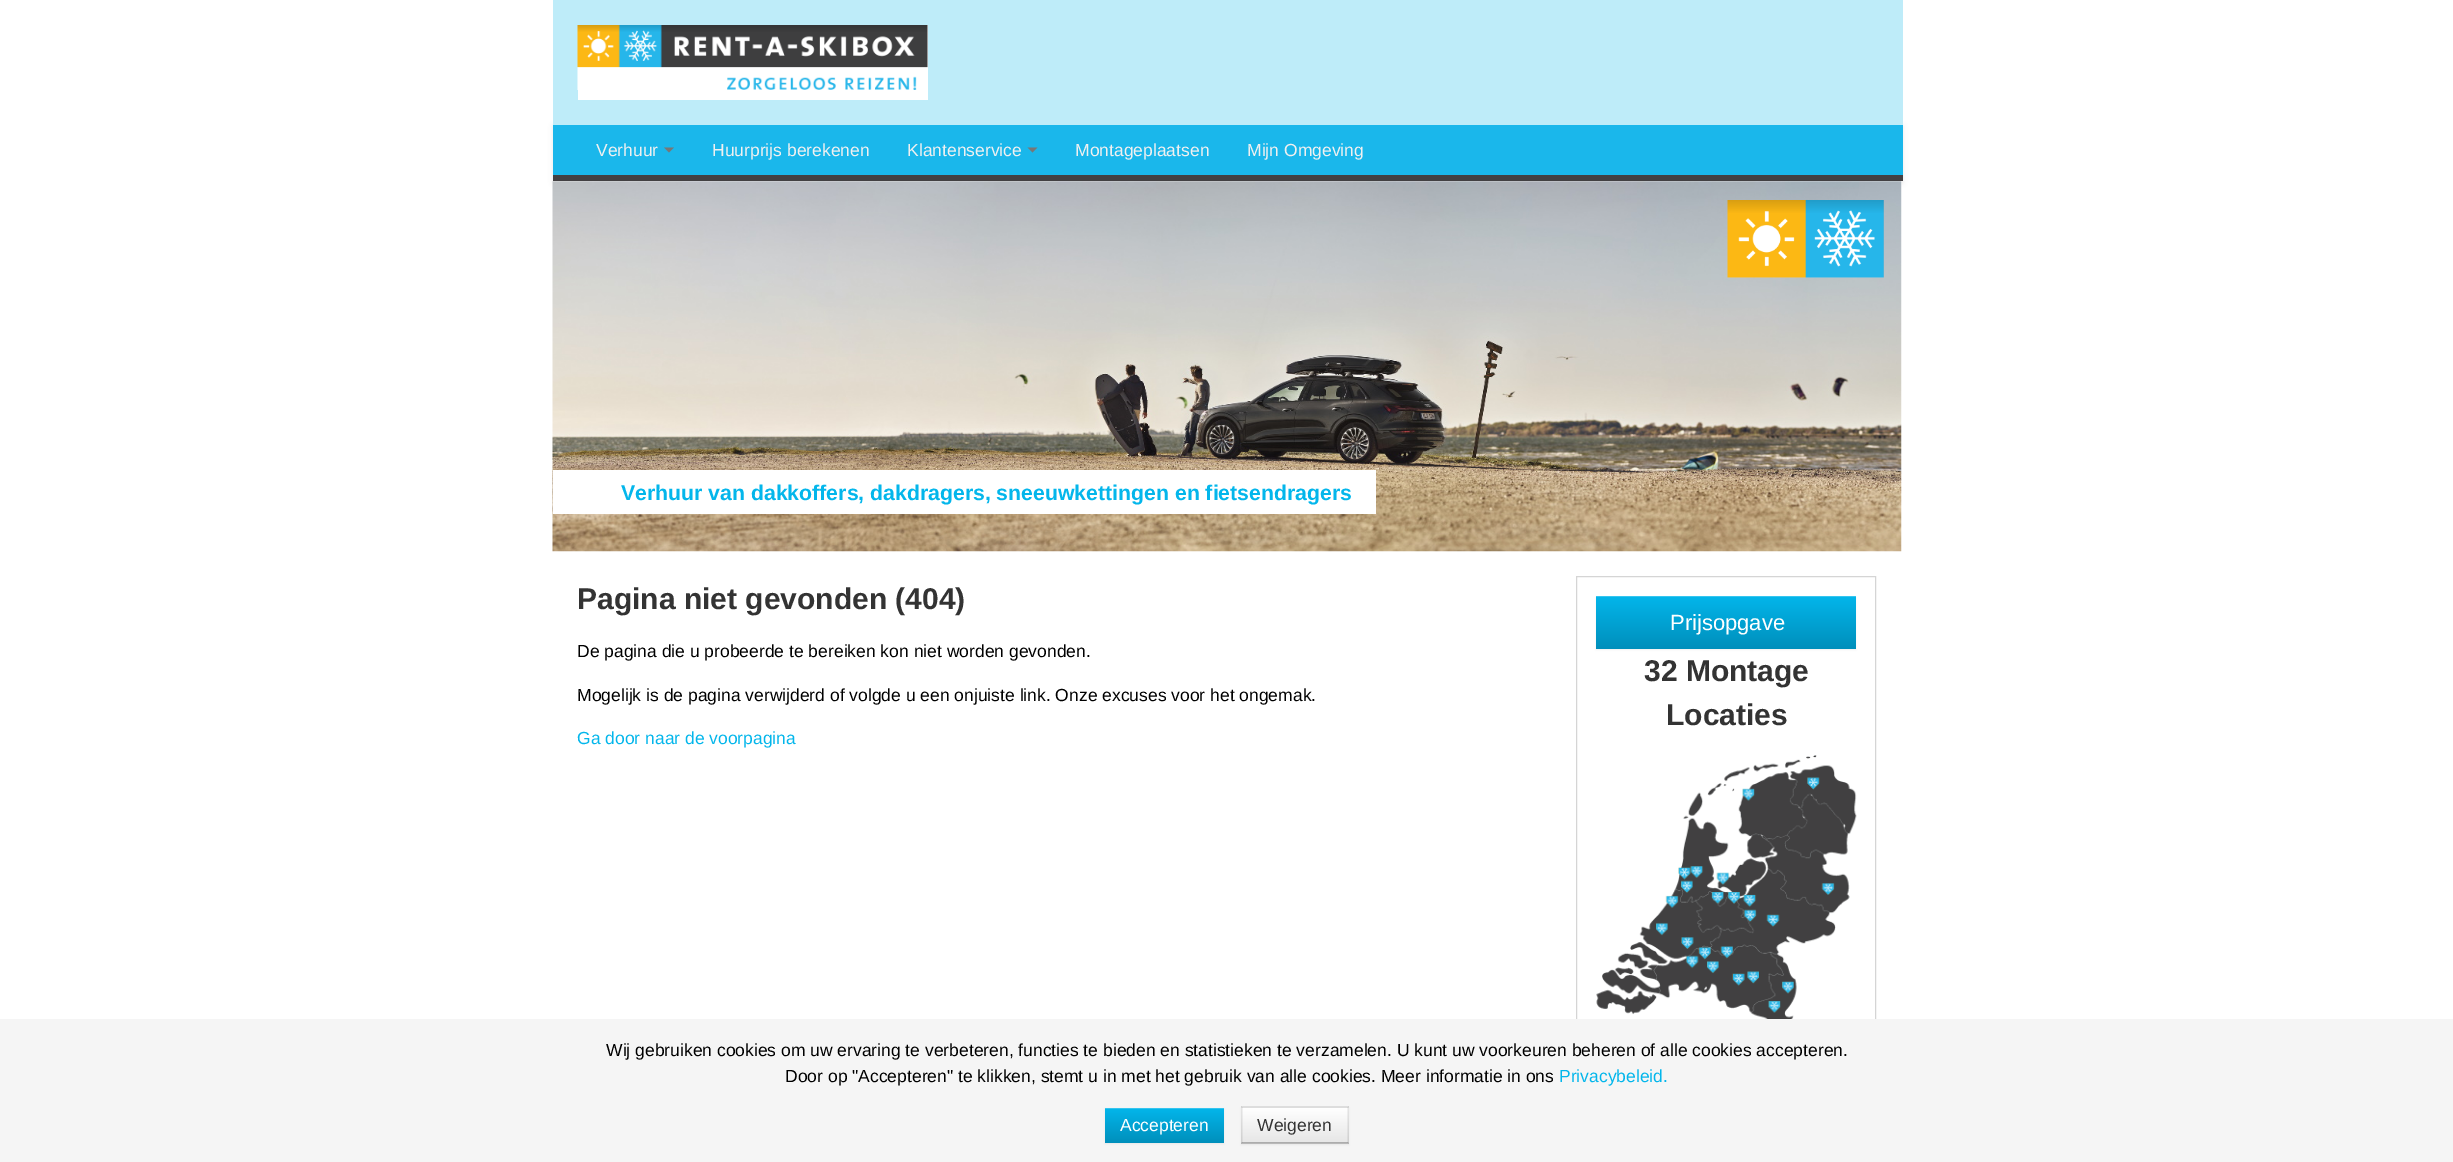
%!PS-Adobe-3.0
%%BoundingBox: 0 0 2453 1162
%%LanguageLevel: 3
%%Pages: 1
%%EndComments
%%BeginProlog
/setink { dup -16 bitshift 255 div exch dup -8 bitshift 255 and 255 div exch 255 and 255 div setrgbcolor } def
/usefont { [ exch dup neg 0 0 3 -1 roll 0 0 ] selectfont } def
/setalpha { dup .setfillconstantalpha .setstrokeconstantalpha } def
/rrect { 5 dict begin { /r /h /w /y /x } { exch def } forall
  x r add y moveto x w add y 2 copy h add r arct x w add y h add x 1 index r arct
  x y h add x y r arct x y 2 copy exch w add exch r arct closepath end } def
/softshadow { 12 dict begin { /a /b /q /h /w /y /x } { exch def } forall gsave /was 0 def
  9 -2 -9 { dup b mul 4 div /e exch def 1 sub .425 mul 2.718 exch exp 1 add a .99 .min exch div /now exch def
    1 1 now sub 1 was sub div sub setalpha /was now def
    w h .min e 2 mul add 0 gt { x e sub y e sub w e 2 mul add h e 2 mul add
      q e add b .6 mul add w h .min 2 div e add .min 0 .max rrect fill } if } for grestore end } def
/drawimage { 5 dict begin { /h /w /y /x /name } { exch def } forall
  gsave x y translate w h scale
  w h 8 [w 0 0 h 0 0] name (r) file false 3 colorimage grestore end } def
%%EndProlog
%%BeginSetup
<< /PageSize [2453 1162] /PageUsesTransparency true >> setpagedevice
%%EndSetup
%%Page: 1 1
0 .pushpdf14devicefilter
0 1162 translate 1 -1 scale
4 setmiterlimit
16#FFFFFF setink
0 0 2453 1162 rectfill
16#000000 setink
553 126 1350 57 0 2.5 0.07 softshadow
16#BEECF9 setink
553 0 1350 125 rectfill
16#FFFFFF setink
578 25 350 75 rectfill
(img1.raw) 577 25 351 65 drawimage
16#1AB7EB setink
553 125 1350 50 rectfill
16#424042 setink
553 175 1350 6 rectfill
/LiberationSans-Regular 17.5 usefont
16#F0F0F0 setink
596 156 moveto (Verhuur) show
16#777777 setink
664 147.5 moveto 674 147.5 lineto 669 152.5 lineto closepath fill
16#F0F0F0 setink
712 156 moveto (Huurprijs berekenen) show
907 156 moveto (Klantenservice) show
16#777777 setink
1027.5 147.5 moveto 1037.5 147.5 lineto 1032.5 152.5 lineto closepath fill
16#F0F0F0 setink
1075 156 moveto (Montageplaatsen) show
1247 156 moveto (Mijn Omgeving) show
(img2.raw) 552 181 1350 371 drawimage
(img3.raw) 1727 200 157 78 drawimage
16#FFFFFF setink
553 470 823 44 rectfill
/LiberationSans-Bold 21.25 usefont
16#03B6EB setink
621 500 moveto (Verhuur van dakkoffers, dakdragers, sneeuwkettingen en fietsendragers) show
/LiberationSans-Bold 30 usefont
16#333333 setink
577 609 moveto (Pagina niet gevonden \(404\)) show
/LiberationSans-Regular 17.5 usefont
16#000000 setink
577 657 moveto (De pagina die u probeerde te bereiken kon niet worden gevonden.) show
577 701 moveto (Mogelijk is de pagina verwijderd of volgde u een onjuiste link. Onze excuses voor het ongemak.) show
16#03B6EB setink
577 744 moveto (Ga door naar de voorpagina) show
16#D5D5D5 setink
1576.5 576.5 299 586 rectstroke
16#000000 setink
1596 598 260 52 0 1 0.05 softshadow
gsave 1596 597 moveto 1856 597 lineto 1856 649 lineto 1596 649 lineto closepath clip newpath
<< /ShadingType 2 /ColorSpace /DeviceRGB /Coords [1726 596 1726 649] /Extend [true true] /Function << /FunctionType 2 /Domain [0 1] /C0 [0.012 0.714 0.922] /C1 [0 0.561 0.733] /N 1 >> >> shfill grestore
16#35C5EF setink
1596 596 260 1 rectfill
/LiberationSans-Regular 22 usefont
16#FFFFFF setink
1670 630 moveto (Prijsopgave) show
/LiberationSans-Bold 30 usefont
16#333333 setink
1644 681 moveto (32 Montage) show
1666 725 moveto (Locaties) show
(img4.raw) 1596 755 261 264 drawimage
16#F5F5F5 setink
0 1019 2453 143 rectfill
/LiberationSans-Regular 17.5 usefont
16#000000 setink
606 1056 moveto (Wij gebruiken cookies om uw ervaring te verbeteren, functies te bieden en statistieken te verzamelen. U kunt uw voorkeuren beheren of alle cookies accepteren.) show
785 1082 moveto (Door op "Accepteren" te klikken, stemt u in met het gebruik van alle cookies. Meer informatie in ons) show
16#03B6EB setink
1559 1082 moveto (Privacybeleid.) show
16#000000 setink
1105 1109 119 35 0 1 0.05 softshadow
gsave 1105 1109 moveto 1224 1109 lineto 1224 1143 lineto 1105 1143 lineto closepath clip newpath
<< /ShadingType 2 /ColorSpace /DeviceRGB /Coords [1164 1108 1164 1143] /Extend [true true] /Function << /FunctionType 2 /Domain [0 1] /C0 [0.012 0.714 0.922] /C1 [0 0.561 0.733] /N 1 >> >> shfill grestore
16#35C4EE setink
1105 1108 119 1 rectfill
16#FFFFFF setink
1120 1131 moveto (Accepteren) show
16#000000 setink
1241 1108 108 37 0 1 0.05 softshadow
16#F5F5F5 setink
1241 1107 108 37 rectfill
gsave 1241 1108 moveto 1349 1108 lineto 1349 1143 lineto 1241 1143 lineto closepath clip newpath
<< /ShadingType 2 /ColorSpace /DeviceRGB /Coords [1295 1108 1295 1143] /Extend [true true] /Function << /FunctionType 2 /Domain [0 1] /C0 [1 1 1] /C1 [0.902 0.902 0.902] /N 1 >> >> shfill grestore
16#DDDDDD setink
1241 1106 moveto 1349 1106 lineto 1348 1108 lineto 1242 1108 lineto closepath fill
0.1 setalpha
16#000000 setink
1349 1106 moveto 1349 1144 lineto 1347.5 1142.5 lineto 1347.5 1107.5 lineto closepath fill
0.25 setalpha
1349 1144 moveto 1241 1144 lineto 1242 1142 lineto 1348 1142 lineto closepath fill
0.1 setalpha
1241 1144 moveto 1241 1106 lineto 1242.5 1107.5 lineto 1242.5 1142.5 lineto closepath fill
1 setalpha
16#333333 setink
1257 1131 moveto (Weigeren) show
.poppdf14devicefilter showpage
%%EOF
